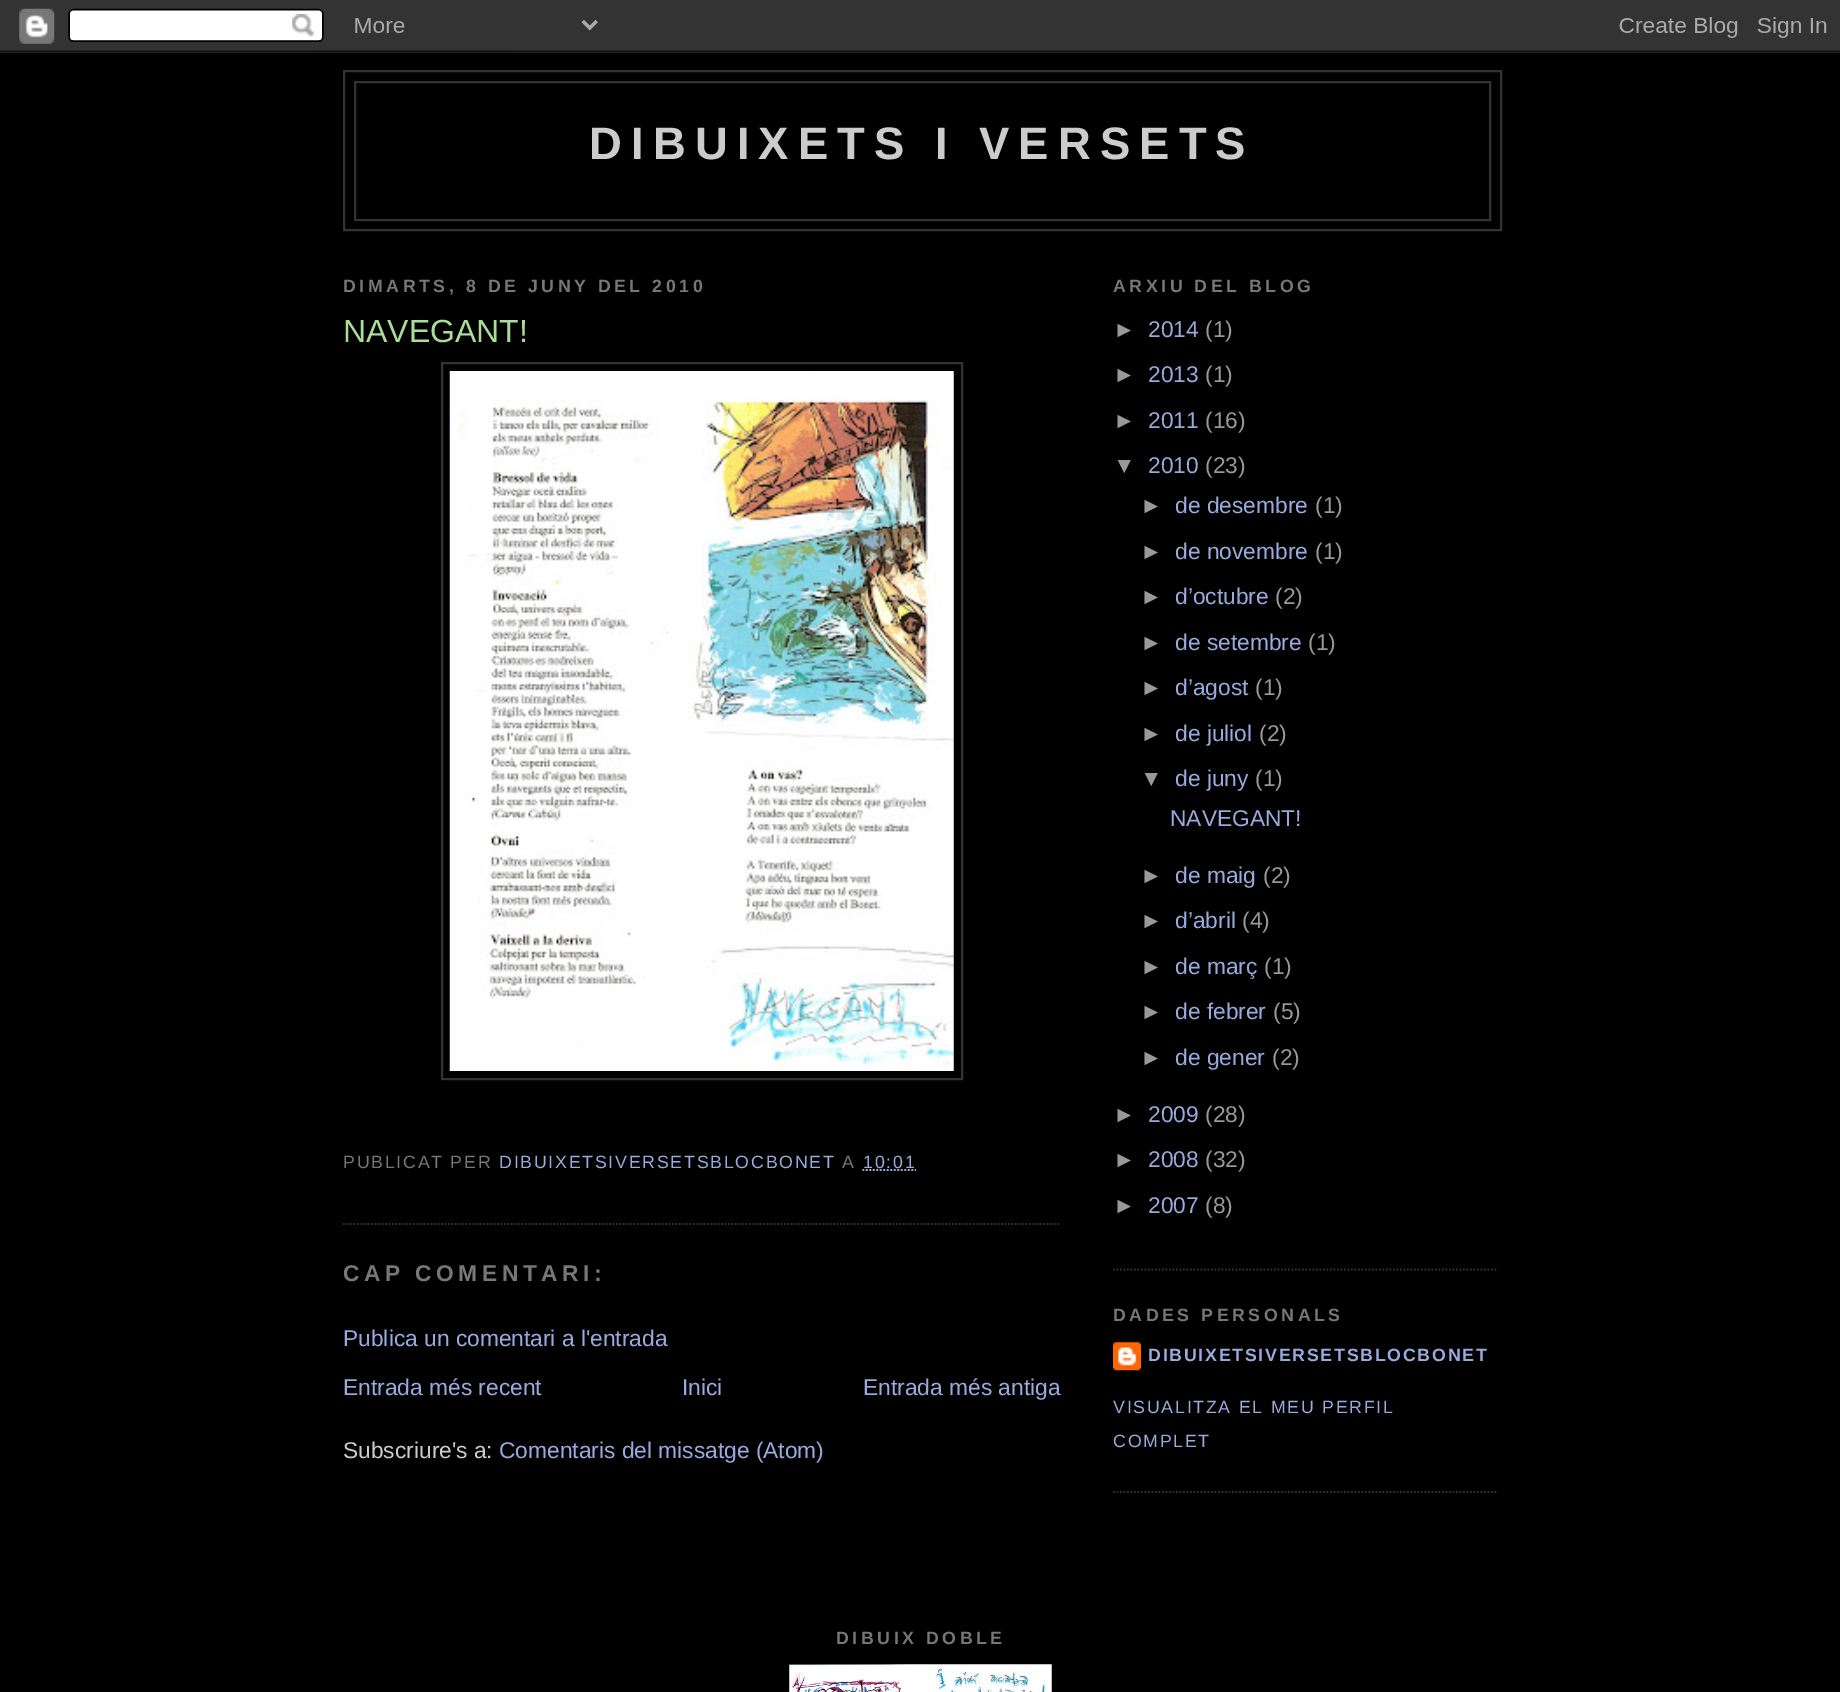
%!PS-Adobe-3.0
%%BoundingBox: 0 0 1840 1692
%%LanguageLevel: 3
%%Pages: 1
%%EndComments
%%BeginProlog
/setink { dup -16 bitshift 255 div exch dup -8 bitshift 255 and 255 div exch 255 and 255 div setrgbcolor } def
/usefont { [ exch dup neg 0 0 3 -1 roll 0 0 ] selectfont } def
/drawimage { 5 dict begin { /h /w /y /x /name } { exch def } forall
  gsave x y translate w h scale
  w h 8 [w 0 0 h 0 0] name (r) file false 3 colorimage grestore end } def
%%EndProlog
%%BeginSetup
<< /PageSize [1840 1692] >> setpagedevice
%%EndSetup
%%Page: 1 1
0 1692 translate 1 -1 scale
4 setmiterlimit
16#000000 setink
0 0 1840 1692 rectfill
(img1.raw) 0 0 1840 53 drawimage
16#333333 setink
2 setlinewidth
344 71 1157 159 rectstroke
355 82 1135 138 rectstroke
/LiberationSans-Bold 45.5 usefont
16#CCCCCC setink
589 159 moveto 9.1 0 (DIBUIXETS I VERSETS) ashow
/LiberationSans-Bold 17.75 usefont
16#777777 setink
343 292 moveto 3.55 0 (DIMARTS, 8 DE JUNY DEL 2010) ashow
16#333333 setink
1.8 setlinewidth
[1.75 1.75] 0 setdash
343 1224 moveto 1060.5 1224 lineto stroke
/LiberationSans-Regular 32 usefont
16#AADD99 setink
343 342 moveto (NAVEGANT!) show
16#333333 setink
2 setlinewidth
[] 0 setdash
442 363 520 716 rectstroke
(img2.raw) 449 371 505 700 drawimage
/LiberationSans-Regular 17.75 usefont
16#777777 setink
343 1168 moveto 1.75 0 (PUBLICAT PER) ashow
16#99AADD setink
499 1168 moveto 1.75 0 (DIBUIXETSIVERSETSBLOCBONET) ashow
16#777777 setink
842 1168 moveto 1.75 0 (A) ashow
16#99AADD setink
863 1168 moveto 1.75 0 (10:01) ashow
1.8 setlinewidth
[1.75 1.75] 0 setdash
862.5 1170 moveto 916 1170 lineto stroke
/LiberationSans-Bold 22.75 usefont
16#777777 setink
343 1281 moveto 4.5 0 (CAP COMENTARI:) ashow
/LiberationSans-Regular 22.75 usefont
16#99AADD setink
[
    [(Publica un comentari a l'entrada) 343 1346]
    [(Entrada més recent) 343 1395]
    [(Inici) 682 1395]
    [(Entrada més antiga) 863 1395]
] { aload pop moveto show } forall
16#CCCCCC setink
343 1458 moveto (Subscriure's a:) show
16#99AADD setink
499 1458 moveto (Comentaris del missatge \(Atom\)) show
16#333333 setink
1113 1269.5 moveto 1498 1269.5 lineto stroke
/LiberationSans-Bold 17.75 usefont
16#777777 setink
1113 292 moveto 3.55 0 (ARXIU DEL BLOG) ashow
/LiberationSans-Regular 22.75 usefont
16#999999 setink
1113 337 moveto (►) show
16#99AADD setink
1148 337 moveto (2014) show
16#999999 setink
1205 337 moveto (\(1\)) show
1113 382 moveto (►) show
16#99AADD setink
1148 382 moveto (2013) show
16#999999 setink
1205 382 moveto (\(1\)) show
1113 428 moveto (►) show
16#99AADD setink
1148 428 moveto (2011) show
16#999999 setink
1205 428 moveto (\(16\)) show
1113 473 moveto (▼) show
16#99AADD setink
1148 473 moveto (2010) show
16#999999 setink
1205 473 moveto (\(23\)) show
1140 513 moveto (►) show
16#99AADD setink
1175 513 moveto (de desembre) show
16#999999 setink
1315 513 moveto (\(1\)) show
1140 559 moveto (►) show
16#99AADD setink
1175 559 moveto (de novembre) show
16#999999 setink
1315 559 moveto (\(1\)) show
1140 604 moveto (►) show
16#99AADD setink
1175 604 moveto (d’octubre) show
16#999999 setink
1275 604 moveto (\(2\)) show
1140 650 moveto (►) show
16#99AADD setink
1175 650 moveto (de setembre) show
16#999999 setink
1308 650 moveto (\(1\)) show
1140 695 moveto (►) show
16#99AADD setink
1175 695 moveto (d’agost) show
16#999999 setink
1255 695 moveto (\(1\)) show
1140 741 moveto (►) show
16#99AADD setink
1175 741 moveto (de juliol) show
16#999999 setink
1259 741 moveto (\(2\)) show
1140 786 moveto (▼) show
16#99AADD setink
1175 786 moveto (de juny) show
16#999999 setink
1255 786 moveto (\(1\)) show
16#99AADD setink
1170 826 moveto (NAVEGANT!) show
16#999999 setink
1140 883 moveto (►) show
16#99AADD setink
1175 883 moveto (de maig) show
16#999999 setink
1263 883 moveto (\(2\)) show
1140 928 moveto (►) show
16#99AADD setink
1175 928 moveto (d’abril) show
16#999999 setink
1242 928 moveto (\(4\)) show
1140 974 moveto (►) show
16#99AADD setink
1175 974 moveto (de març) show
16#999999 setink
1264 974 moveto (\(1\)) show
1140 1019 moveto (►) show
16#99AADD setink
1175 1019 moveto (de febrer) show
16#999999 setink
1273 1019 moveto (\(5\)) show
1140 1065 moveto (►) show
16#99AADD setink
1175 1065 moveto (de gener) show
16#999999 setink
1272 1065 moveto (\(2\)) show
1113 1122 moveto (►) show
16#99AADD setink
1148 1122 moveto (2009) show
16#999999 setink
1205 1122 moveto (\(28\)) show
1113 1167 moveto (►) show
16#99AADD setink
1148 1167 moveto (2008) show
16#999999 setink
1205 1167 moveto (\(32\)) show
1113 1213 moveto (►) show
16#99AADD setink
1148 1213 moveto (2007) show
16#999999 setink
1205 1213 moveto (\(8\)) show
16#333333 setink
1113 1492 moveto 1498 1492 lineto stroke
/LiberationSans-Bold 17.75 usefont
16#777777 setink
1113 1321 moveto 3.55 0 (DADES PERSONALS) ashow
(img3.raw) 1113 1342 28 29 drawimage
16#99AADD setink
1148 1361 moveto 1.75 0 (DIBUIXETSIVERSETSBLOCBONET) ashow
/LiberationSans-Regular 17.75 usefont
1113 1413 moveto 1.75 0 (VISUALITZA EL MEU PERFIL) ashow
1113 1447 moveto 1.75 0 (COMPLET) ashow
/LiberationSans-Bold 17.75 usefont
16#777777 setink
836 1644 moveto 3.55 0 (DIBUIX DOBLE) ashow
(img4.raw) 789 1664 263 28 drawimage
showpage
%%EOF
